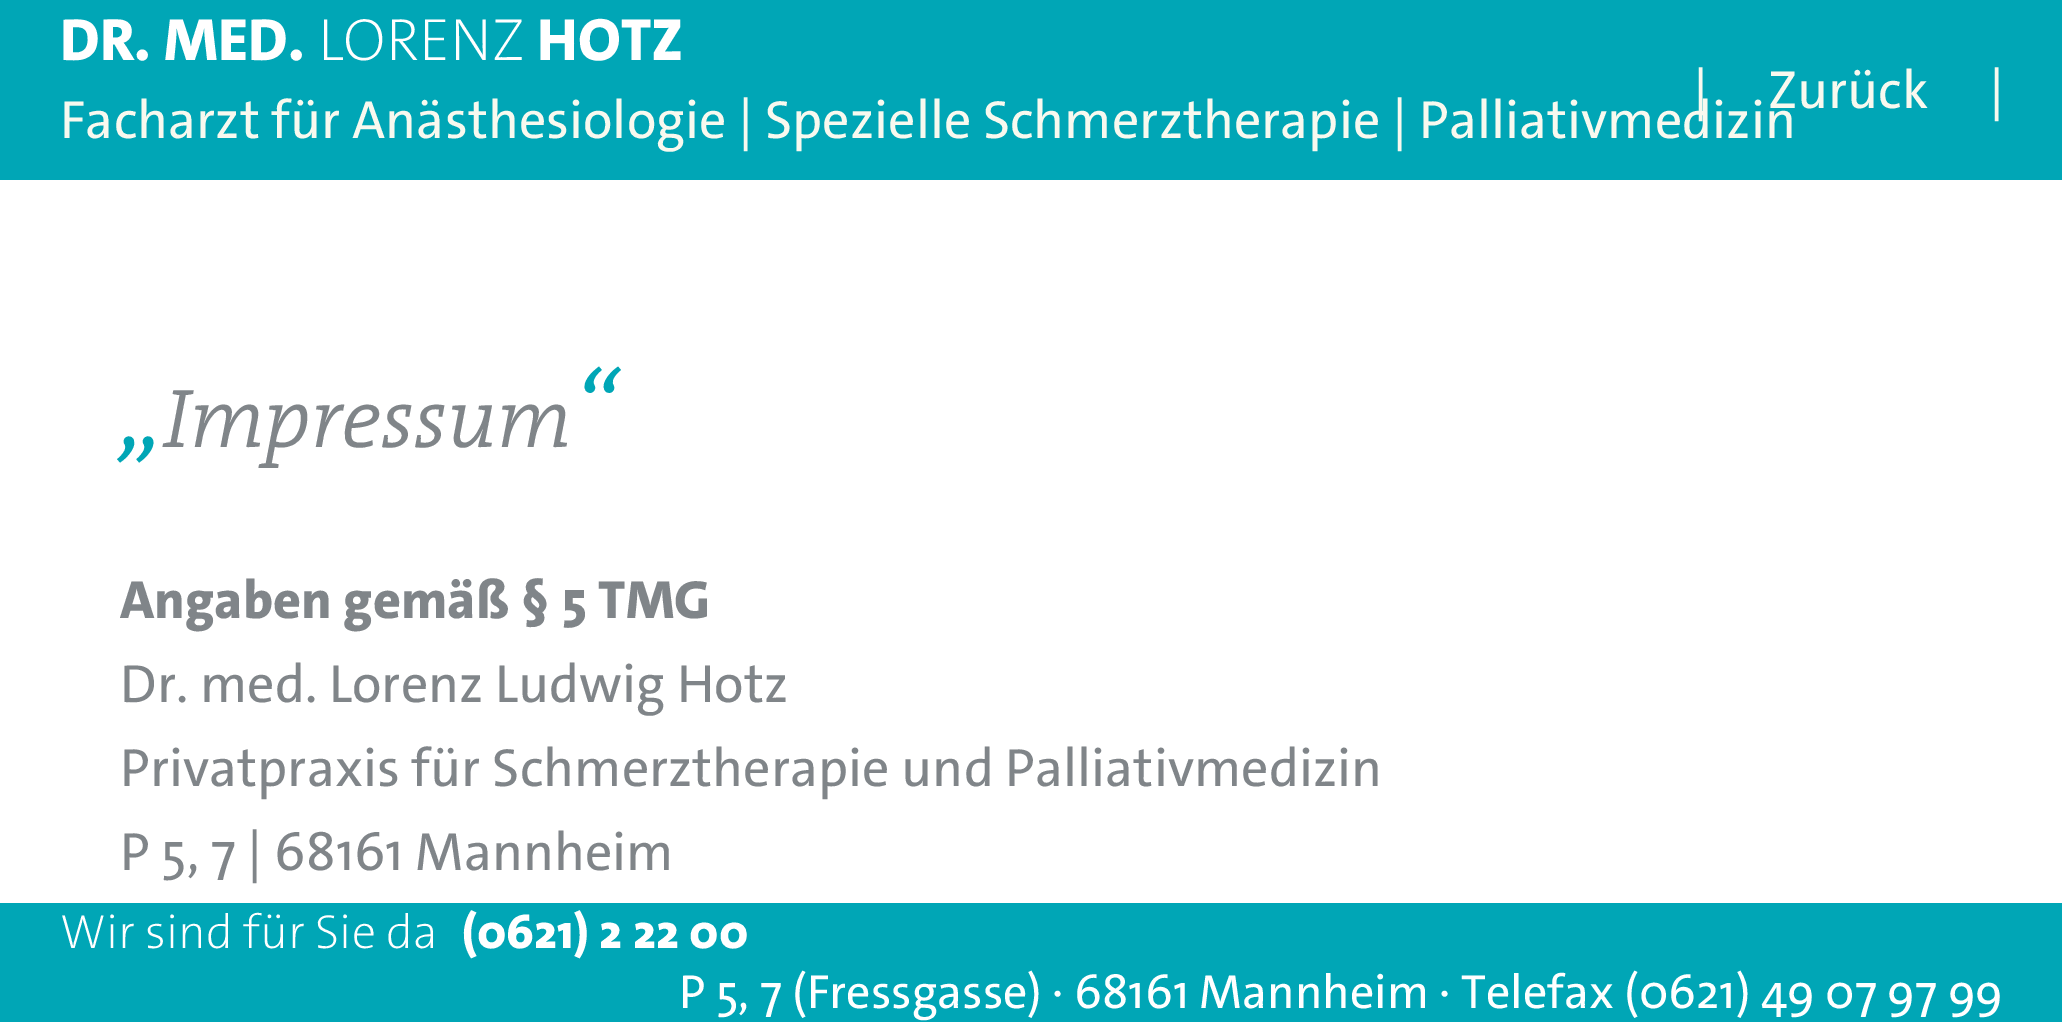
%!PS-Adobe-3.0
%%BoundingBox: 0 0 2062 1022
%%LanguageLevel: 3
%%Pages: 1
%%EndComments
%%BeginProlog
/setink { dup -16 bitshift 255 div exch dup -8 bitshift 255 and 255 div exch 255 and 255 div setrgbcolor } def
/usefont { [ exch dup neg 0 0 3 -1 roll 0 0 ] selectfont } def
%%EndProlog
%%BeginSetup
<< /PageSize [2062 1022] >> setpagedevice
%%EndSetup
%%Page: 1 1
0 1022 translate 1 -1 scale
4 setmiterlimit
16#FFFFFF setink
0 0 2062 1022 rectfill
16#00A6B6 setink
0 0 2062 180 rectfill
/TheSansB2-ExtraBold 60 usefont
16#FFFFFF setink
60 60 moveto (DR. MED.) show
/TheSansB2-ExtraLight 60 usefont
318 60 moveto (LORENZ) show
/TheSansB2-ExtraBold 60 usefont
537 60 moveto (HOTZ) show
/TheSansB2-Regular 54 usefont
16#F8F9EF setink
1693 108 moveto (|) show
60 138 moveto (Facharzt für Anästhesiologie | Spezielle Schmerztherapie | Palliativmedizin) show
/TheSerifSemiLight-LightItalic 108 usefont
16#00A6B6 setink
572 447 moveto (“) show
120 447 moveto („) show
/TheSerifSemiLight-LightItalic 84 usefont
16#808589 setink
164 447 moveto (Impressum) show
/TheSansB2-ExtraBold 54 usefont
120 618 moveto (Angaben gemäß § 5 TMG) show
/TheSansB2-Regular 54 usefont
[
    [(Dr. med. Lorenz Ludwig Hotz) 120 702]
    [(Privatpraxis für Schmerztherapie und Palliativmedizin) 120 786]
    [(P 5, 7 | 68161 Mannheim) 120 870]
] { aload pop moveto show } forall
16#00A6B6 setink
0 903 2062 119 rectfill
/TheSansB2-ExtraLight 48 usefont
16#FFFFFF setink
60 948 moveto (Wir sind für Sie da) show
/TheSansB2-ExtraBold 48 usefont
462 948 moveto (\(0621\) 2 22 00) show
/TheSansB2-Regular 48 usefont
679 1008 moveto (P 5, 7 \(Fressgasse\) · 68161 Mannheim · Telefax \(0621\) 49 07 97 99) show
/TheSansB2-Regular 54 usefont
16#F8F9EF setink
1768 108 moveto (Zurück) show
1989 108 moveto (|) show
showpage
%%EOF
